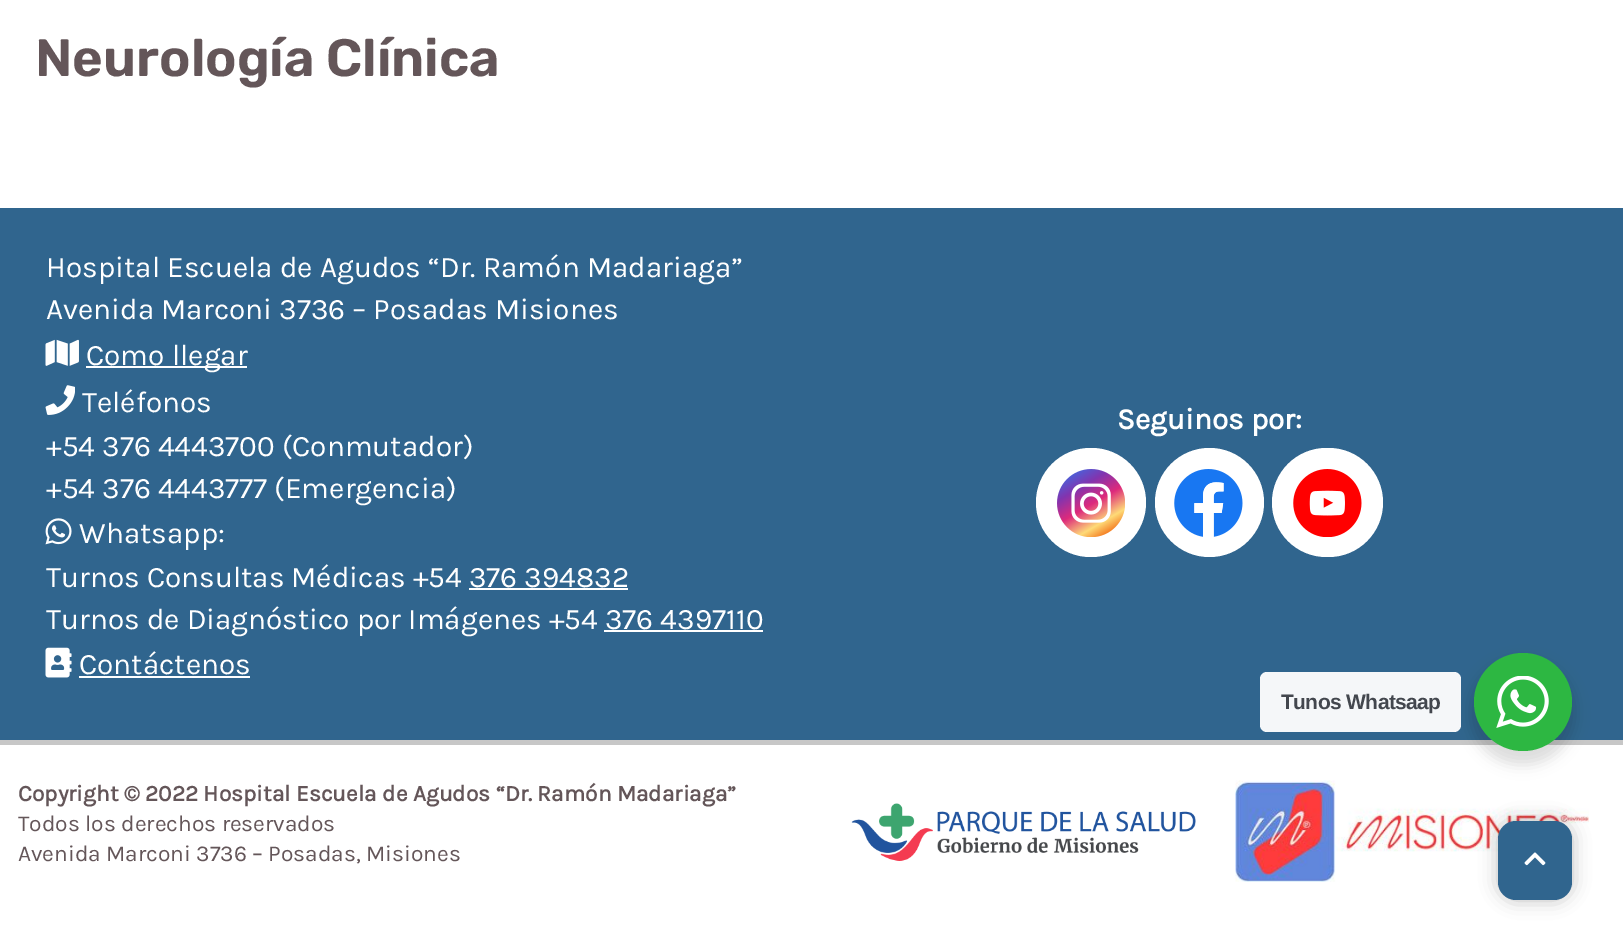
%!PS-Adobe-3.0
%%BoundingBox: 0 0 1623 951
%%LanguageLevel: 3
%%Pages: 1
%%EndComments
%%BeginProlog
/setink { dup -16 bitshift 255 div exch dup -8 bitshift 255 and 255 div exch 255 and 255 div setrgbcolor } def
/usefont { [ exch dup neg 0 0 3 -1 roll 0 0 ] selectfont } def
/setalpha { dup .setfillconstantalpha .setstrokeconstantalpha } def
/disc { newpath 0 360 arc closepath } def
/rrect { 5 dict begin { /r /h /w /y /x } { exch def } forall
  x r add y moveto x w add y 2 copy h add r arct x w add y h add x 1 index r arct
  x y h add x y r arct x y 2 copy exch w add exch r arct closepath end } def
/softshadow { 12 dict begin { /a /b /q /h /w /y /x } { exch def } forall gsave /was 0 def
  9 -2 -9 { dup b mul 4 div /e exch def 1 sub .425 mul 2.718 exch exp 1 add a .99 .min exch div /now exch def
    1 1 now sub 1 was sub div sub setalpha /was now def
    w h .min e 2 mul add 0 gt { x e sub y e sub w e 2 mul add h e 2 mul add
      q e add b .6 mul add w h .min 2 div e add .min 0 .max rrect fill } if } for grestore end } def
/drawimage { 5 dict begin { /h /w /y /x /name } { exch def } forall
  gsave x y translate w h scale
  w h 8 [w 0 0 h 0 0] name (r) file false 3 colorimage grestore end } def
%%EndProlog
%%BeginSetup
<< /PageSize [1623 951] /PageUsesTransparency true >> setpagedevice
%%EndSetup
%%Page: 1 1
0 .pushpdf14devicefilter
0 951 translate 1 -1 scale
4 setmiterlimit
16#FFFFFF setink
0 0 1623 951 rectfill
/Rubik-SemiBold 52.5 usefont
16#645659 setink
35 76 moveto (Neurología Clínica) show
16#30658E setink
0 208 1623 532 rectfill
/Karla-Regular 29.75 usefont
16#FFFFFF setink
46 277 moveto (Hospital Escuela de Agudos “Dr. Ramón Madariaga”) show
46 319 moveto (Avenida Marconi 3736 – Posadas Misiones) show
(img1.raw) 45 339 34 27 drawimage
86 366 161 2 rectfill
86 365 moveto (Como llegar) show
(img2.raw) 45 385 30 30 drawimage
[
    [(Teléfonos) 82 412]
    [(+54 376 4443700 \(Conmutador\)) 46 456]
    [(+54 376 4443777 \(Emergencia\)) 46 498]
] { aload pop moveto show } forall
(img3.raw) 45 518 27 27 drawimage
79 543 moveto (Whatsapp:) show
46 587 moveto (Turnos Consultas Médicas +54 376 394832) show
469 588 159 2 rectfill
46 629 moveto (Turnos de Diagnóstico por Imágenes +54 376 4397110) show
604 630 159 2 rectfill
(img4.raw) 45 647 27 31 drawimage
79 674 moveto (Contáctenos) show
79 676 171 2 rectfill
/Karla-Bold 29.75 usefont
1117 429 moveto (Seguinos por:) show
1036 448 110 109 54.5 rrect fill
(img5.raw) 1057 469 68 68 drawimage
1209.5 502.5 54.5 disc fill
(img6.raw) 1174 469 69 68 drawimage
1272 448 111 109 54.5 rrect fill
(img7.raw) 1293 469 69 68 drawimage
16#C7C7C7 setink
0 740 1623 5 rectfill
/Karla-Bold 22.75 usefont
16#645659 setink
18 801 moveto (Copyright © 2022 Hospital Escuela de Agudos “Dr. Ramón Madariaga”) show
/Karla-Regular 22.75 usefont
18 831 moveto (Todos los derechos reservados) show
18 861 moveto (Avenida Marconi 3736 – Posadas, Misiones) show
(img8.raw) 851 803 345 58 drawimage
(img9.raw) 1235 780 354 102 drawimage
16#000000 setink
1498 821 74 79 18 9 0.25 softshadow
16#30658E setink
1498 821 74 79 18 rrect fill
(img10.raw) 1524 852 22 14 drawimage
16#000000 setink
1470 660 105 105 52.5 7 0.14 softshadow
16#F5F7F9 setink
1260 672 201 60 7 rrect fill
/LiberationSans-Bold 21 usefont
16#43474E setink
1281 709 moveto -0.6 0 (Tunos Whatsaap) ashow
16#2DB742 setink
1523 702 49 disc fill
(img11.raw) 1496 676 53 52 drawimage
.poppdf14devicefilter showpage
%%EOF
